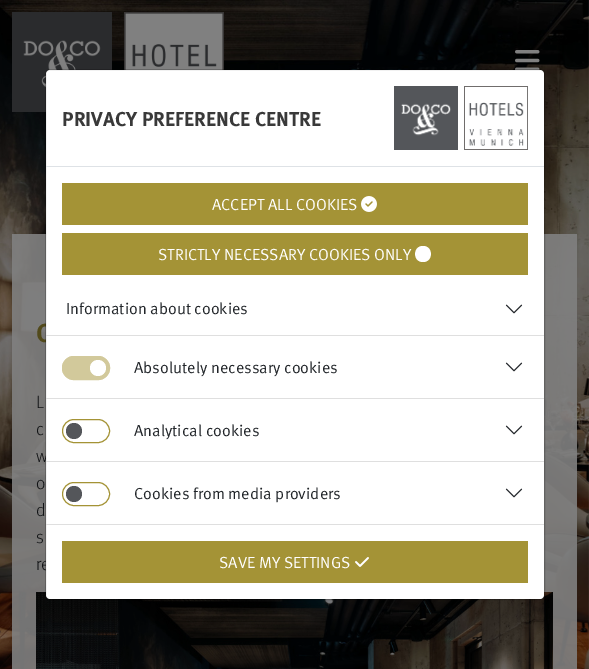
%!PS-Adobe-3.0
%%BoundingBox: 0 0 589 669
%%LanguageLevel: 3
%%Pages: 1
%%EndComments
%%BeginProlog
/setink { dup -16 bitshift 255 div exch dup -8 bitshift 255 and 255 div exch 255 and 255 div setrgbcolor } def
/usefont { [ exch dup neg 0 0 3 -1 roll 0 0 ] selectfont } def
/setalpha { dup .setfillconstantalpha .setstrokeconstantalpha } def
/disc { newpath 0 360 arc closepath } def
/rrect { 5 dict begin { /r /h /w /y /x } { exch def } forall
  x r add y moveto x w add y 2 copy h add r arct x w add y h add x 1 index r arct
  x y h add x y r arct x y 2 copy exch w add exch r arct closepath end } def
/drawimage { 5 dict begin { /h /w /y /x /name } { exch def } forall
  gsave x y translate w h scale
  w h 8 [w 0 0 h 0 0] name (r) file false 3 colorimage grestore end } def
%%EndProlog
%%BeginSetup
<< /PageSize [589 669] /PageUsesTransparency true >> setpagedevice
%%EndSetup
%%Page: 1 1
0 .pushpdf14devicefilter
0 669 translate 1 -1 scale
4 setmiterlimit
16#FFFFFF setink
0 0 589 669 rectfill
(img1.raw) 0 0 589 669 drawimage
(img2.raw) 12 12 100 100 drawimage
(img3.raw) 124 12 100 58 drawimage
(img4.raw) 515 50 25 20 drawimage
0.9 setalpha
16#808080 setink
12 234 565 435 rectfill
/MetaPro-Bold 26 usefont
1 setalpha
16#524A1B setink
36 342 moveto (C) show
/MetaPro-Light 18 usefont
16#111315 setink
[
    [(L) 36 408]
    [(c) 36 435]
    [(w) 36 462]
    [(o) 36 489]
    [(d) 36 516]
    [(s) 36 543]
    [(re) 36 570]
] { aload pop moveto show } forall
(img5.raw) 36 592 517 77 drawimage
16#FFFFFF setink
46 70 498 529 4 rrect fill
0.2 setalpha
16#000000 setink
45.5 69.5 499 530 4.5 rrect stroke
1 setalpha
16#DEE2E6 setink
46 166 498 1 rectfill
/MetaPro-Bold 20 usefont
16#393939 setink
62 126 moveto (PRIVACY PREFERENCE CENTRE) show
(img6.raw) 394 86 64 64 drawimage
(img7.raw) 464 86 64 64 drawimage
16#A49336 setink
62 183 466 42 rectfill
/MetaPro-Regular 16 usefont
16#FFFFFF setink
212 210 moveto (ACCEPT ALL COOKIES) show
(img8.raw) 361 196 16 16 drawimage
16#A49336 setink
62 233 466 42 rectfill
16#FFFFFF setink
158 260 moveto (STRICTLY NECESSARY COOKIES ONLY) show
423 262 moveto 433.5 262 433.5 246 423 246 curveto 412.5 246 412.5 262 423 262 curveto closepath fill
16#DFDFDF setink
46 335 498 1 rectfill
16#212529 setink
66 314 moveto (Information about cookies) show
(img9.raw) 505 304 18 10 drawimage
16#DFDFDF setink
46 398 498 1 rectfill
16#D2C99B setink
62 356 48 24 12 rrect fill
16#FFFFFF setink
98 368 8 disc fill
16#D2C99B setink
62.5 356.5 47 23 11.5 rrect stroke
16#212529 setink
134 373 moveto (Absolutely necessary cookies) show
(img9.raw) 505 362 18 10 drawimage
16#DFDFDF setink
46 461 498 1 rectfill
16#54565A setink
74 431 8 disc fill
16#A49336 setink
62.5 419.5 47 23 11.5 rrect stroke
16#212529 setink
134 436 moveto (Analytical cookies) show
(img9.raw) 505 425 18 10 drawimage
16#DFDFDF setink
46 524 498 1 rectfill
16#54565A setink
74 494 8 disc fill
16#A49336 setink
62.5 482.5 47 23 11.5 rrect stroke
16#212529 setink
134 499 moveto (Cookies from media providers) show
(img9.raw) 505 488 18 10 drawimage
16#A49336 setink
62 541 466 42 rectfill
16#FFFFFF setink
219 568 moveto (SAVE MY SETTINGS) show
(img10.raw) 355 557 14 10 drawimage
.poppdf14devicefilter showpage
%%EOF
